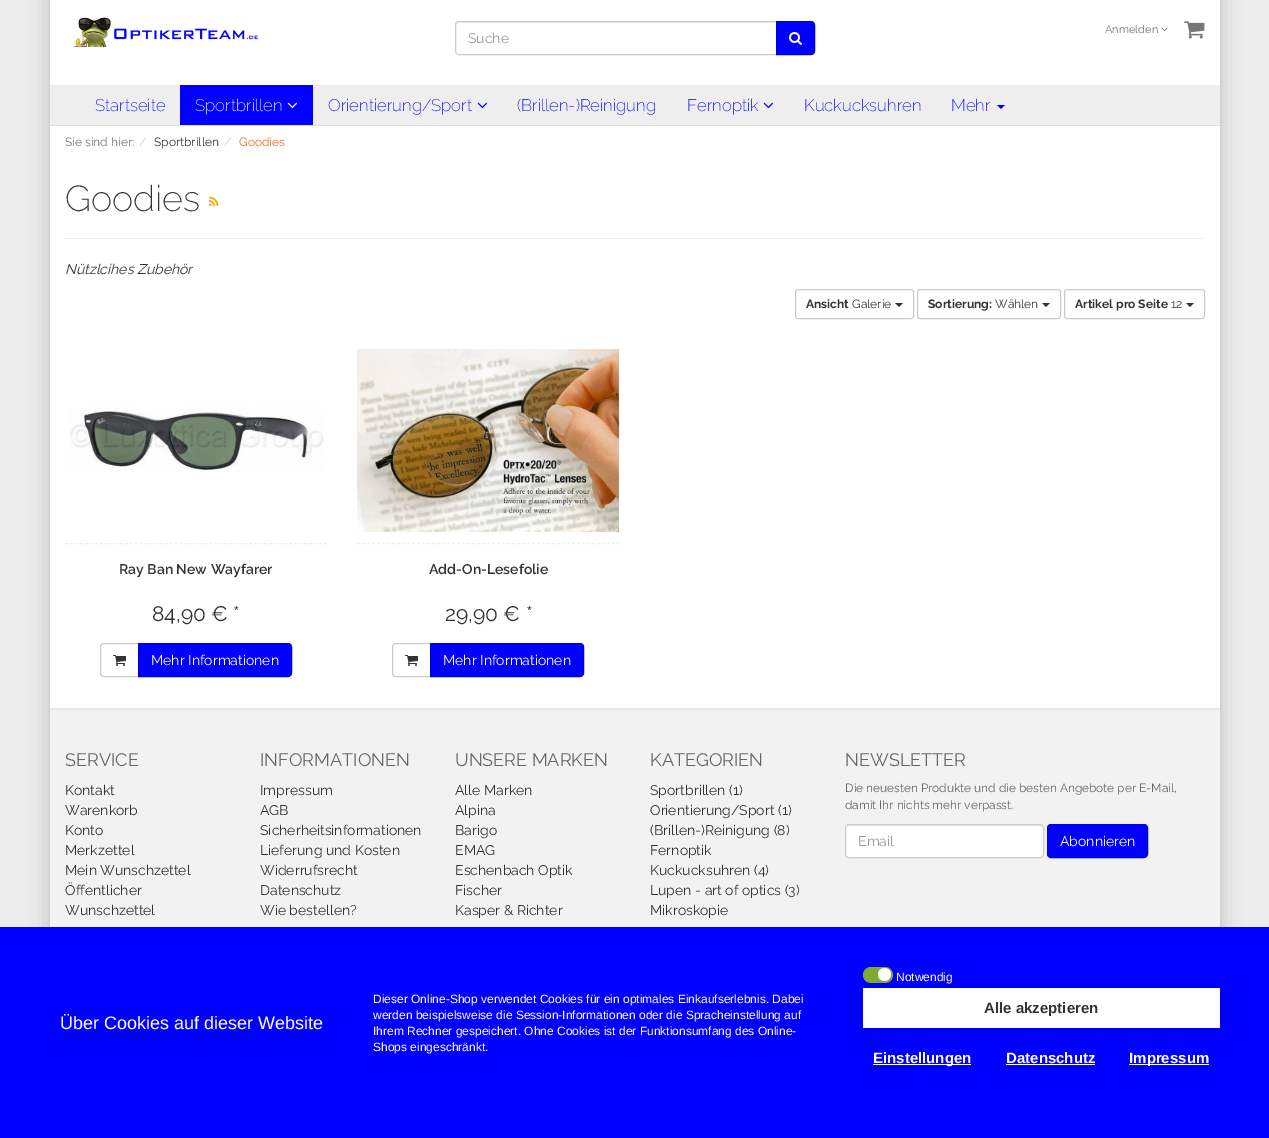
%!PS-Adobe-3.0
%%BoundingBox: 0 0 1269 1138
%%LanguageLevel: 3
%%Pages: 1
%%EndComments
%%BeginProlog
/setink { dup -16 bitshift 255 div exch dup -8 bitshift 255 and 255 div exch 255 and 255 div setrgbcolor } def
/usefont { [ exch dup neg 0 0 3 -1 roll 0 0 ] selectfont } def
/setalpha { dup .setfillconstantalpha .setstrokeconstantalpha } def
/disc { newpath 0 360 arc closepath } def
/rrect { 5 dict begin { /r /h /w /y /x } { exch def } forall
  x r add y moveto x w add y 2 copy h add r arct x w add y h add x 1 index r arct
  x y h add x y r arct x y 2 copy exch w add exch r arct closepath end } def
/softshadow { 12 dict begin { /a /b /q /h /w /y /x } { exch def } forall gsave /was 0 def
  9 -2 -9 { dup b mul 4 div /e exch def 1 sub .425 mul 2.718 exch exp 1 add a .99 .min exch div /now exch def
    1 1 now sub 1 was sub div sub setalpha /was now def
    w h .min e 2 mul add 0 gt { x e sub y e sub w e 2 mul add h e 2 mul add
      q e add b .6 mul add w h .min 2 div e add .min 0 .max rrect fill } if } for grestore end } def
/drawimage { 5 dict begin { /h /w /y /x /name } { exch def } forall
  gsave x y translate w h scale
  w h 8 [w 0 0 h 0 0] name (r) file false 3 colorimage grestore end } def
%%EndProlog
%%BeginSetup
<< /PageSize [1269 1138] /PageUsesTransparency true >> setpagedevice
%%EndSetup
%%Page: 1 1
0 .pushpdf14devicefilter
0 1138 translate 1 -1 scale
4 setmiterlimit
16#ECECEC setink
0 0 1269 1138 rectfill
16#000000 setink
50 -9 1170 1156 0 10 0.2 softshadow
16#FFFFFF setink
50 0 1170 85 rectfill
(img1.raw) 73 17 186 30 drawimage
/Raleway-Regular 11 usefont
16#777777 setink
1105 33 moveto (Anmelden) show
(img2.raw) 1161 27 7 5 drawimage
(img3.raw) 1184 21 21 18 drawimage
16#ECECEC setink
459 23 moveto 776 23 lineto 776 22 lineto 459 22 lineto 457 22 456 24 456 26 curveto 456 24 457 23 459 23 curveto closepath fill
16#CCCCCC setink
459 21.5 moveto 776.5 21.5 lineto 776.5 54.5 lineto 459 54.5 lineto 457 54.5 455.5 53 455.5 51 curveto 455.5 25 lineto 455.5 23 457 21.5 459 21.5 curveto closepath stroke
/Raleway-Regular 14 usefont
16#999999 setink
468 43 moveto (Suche) show
16#0000FF setink
776.5 21.5 moveto 811 21.5 lineto 813 21.5 814.5 23 814.5 25 curveto 814.5 51 lineto 814.5 53 813 54.5 811 54.5 curveto 776.5 54.5 lineto closepath gsave fill grestore
16#0000E6 setink
stroke
(img4.raw) 789 32 13 13 drawimage
16#EEEEEE setink
50 85 1170 40 rectfill
16#DDDDDD setink
50 125 1170 1 rectfill
/Raleway-ExtraLight 16.75 usefont
16#0000FF setink
95 111 moveto (Startseite) show
180 85 133 40 rectfill
16#FFFFFF setink
195 111 moveto (Sportbrillen) show
(img5.raw) 287 102 10 7 drawimage
16#0000FF setink
328 111 moveto (Orientierung/Sport) show
(img6.raw) 477 102 10 7 drawimage
517 111 moveto (\(Brillen-\)Reinigung) show
687 111 moveto (Fernoptik) show
(img6.raw) 763 102 10 7 drawimage
804 111 moveto (Kuckucksuhren) show
951 111 moveto (Mehr) show
997 105 moveto 1005 105 lineto 1001 109 lineto closepath fill
16#FFFFFF setink
50 126 1170 582 rectfill
/Raleway-Regular 12 usefont
16#777777 setink
65 146 moveto (Sie sind hier:) show
16#CCCCCC setink
139 146 moveto (/) show
16#333333 setink
154 146 moveto (Sportbrillen) show
16#CCCCCC setink
224 146 moveto (/) show
16#FC6621 setink
239 146 moveto (Goodies) show
16#EEEEEE setink
65 238 1140 1 rectfill
/Raleway-ExtraLight 36 usefont
16#333333 setink
65 211 moveto (Goodies) show
(img7.raw) 209 196 10 10 drawimage
/Raleway-Italic 14 usefont
65 274 moveto (Nützlcihes Zubehör) show
16#CCCCCC setink
795.5 289.5 118 29 2.5 rrect stroke
/Raleway-Bold 12 usefont
16#333333 setink
806 308 moveto (Ansicht) show
/Raleway-Regular 12 usefont
852 308 moveto (Galerie) show
895 303 moveto 903 303 lineto 899 307 lineto closepath fill
16#CCCCCC setink
917.5 289.5 143 29 2.5 rrect stroke
/Raleway-Bold 12 usefont
16#333333 setink
928 308 moveto (Sortierung:) show
/Raleway-Regular 12 usefont
995 308 moveto (Wählen) show
1042 303 moveto 1050 303 lineto 1046 307 lineto closepath fill
16#CCCCCC setink
1064.5 289.5 140 29 2.5 rrect stroke
/Raleway-Bold 12 usefont
16#333333 setink
1075 308 moveto (Artikel pro Seite) show
/Raleway-Regular 12 usefont
1171 308 moveto (12) show
1186 303 moveto 1194 303 lineto 1190 307 lineto closepath fill
16#EEEEEE setink
[3 1.98] 0 setdash
65 543.5 moveto 327 543.5 lineto stroke
(img8.raw) 69 407 255 65 drawimage
/Raleway-SemiBold 14 usefont
16#333333 setink
119 574 moveto (Ray Ban New Wayfarer) show
/Raleway-Regular 21 usefont
152 621 moveto (84,90 € *) show
16#CCCCCC setink
[] 0 setdash
104 643.5 moveto 138.5 643.5 lineto 138.5 676.5 lineto 104 676.5 lineto 102 676.5 100.5 675 100.5 673 curveto 100.5 647 lineto 100.5 645 102 643.5 104 643.5 curveto closepath stroke
(img9.raw) 113 655 13 11 drawimage
16#0000FF setink
138.5 643.5 moveto 288 643.5 lineto 290 643.5 291.5 645 291.5 647 curveto 291.5 673 lineto 291.5 675 290 676.5 288 676.5 curveto 138.5 676.5 lineto closepath gsave fill grestore
16#0000E6 setink
stroke
/Raleway-Regular 14 usefont
16#FFFFFF setink
151 665 moveto (Mehr Informationen) show
16#EEEEEE setink
[3 2] 0 setdash
357 543.5 moveto 620 543.5 lineto stroke
(img10.raw) 357 349 262 183 drawimage
/Raleway-SemiBold 14 usefont
16#333333 setink
429 574 moveto (Add-On-Lesefolie) show
/Raleway-Regular 21 usefont
445 621 moveto (29,90 € *) show
16#CCCCCC setink
[] 0 setdash
396 643.5 moveto 430.5 643.5 lineto 430.5 676.5 lineto 396 676.5 lineto 394 676.5 392.5 675 392.5 673 curveto 392.5 647 lineto 392.5 645 394 643.5 396 643.5 curveto closepath stroke
(img9.raw) 405 655 13 11 drawimage
16#0000FF setink
430.5 643.5 moveto 580 643.5 lineto 582 643.5 583.5 645 583.5 647 curveto 583.5 673 lineto 583.5 675 582 676.5 580 676.5 curveto 430.5 676.5 lineto closepath gsave fill grestore
16#0000E6 setink
stroke
/Raleway-Regular 14 usefont
16#FFFFFF setink
443 665 moveto (Mehr Informationen) show
16#F2F2F2 setink
50 710 1170 217 rectfill
16#E7E7E7 setink
50 708 1170 2 rectfill
/Raleway-Regular 18 usefont
16#666666 setink
65 766 moveto (SERVICE) show
/Raleway-Regular 14 usefont
16#333333 setink
[
    [(Kontakt) 65 795]
    [(Warenkorb) 65 815]
    [(Konto) 65 835]
    [(Merkzettel) 65 855]
    [(Mein Wunschzettel) 65 875]
    [(Öffentlicher) 65 895]
    [(Wunschzettel) 65 915]
] { aload pop moveto show } forall
/Raleway-Regular 18 usefont
16#666666 setink
260 766 moveto (INFORMATIONEN) show
/Raleway-Regular 14 usefont
16#333333 setink
[
    [(Impressum) 260 795]
    [(AGB) 260 815]
    [(Sicherheitsinformationen) 260 835]
    [(Lieferung und Kosten) 260 855]
    [(Widerrufsrecht) 260 875]
    [(Datenschutz) 260 895]
    [(Wie bestellen?) 260 915]
] { aload pop moveto show } forall
/Raleway-Regular 18 usefont
16#666666 setink
455 766 moveto (UNSERE MARKEN) show
/Raleway-Regular 14 usefont
16#333333 setink
[
    [(Alle Marken) 455 795]
    [(Alpina) 455 815]
    [(Barigo) 455 835]
    [(EMAG) 455 855]
    [(Eschenbach Optik) 455 875]
    [(Fischer) 455 895]
    [(Kasper & Richter) 455 915]
] { aload pop moveto show } forall
/Raleway-Regular 18 usefont
16#666666 setink
650 766 moveto (KATEGORIEN) show
/Raleway-Regular 14 usefont
16#333333 setink
[
    [(Sportbrillen \(1\)) 650 795]
    [(Orientierung/Sport \(1\)) 650 815]
    [(\(Brillen-\)Reinigung \(8\)) 650 835]
    [(Fernoptik) 650 855]
    [(Kuckucksuhren \(4\)) 650 875]
    [(Lupen - art of optics \(3\)) 650 895]
    [(Mikroskopie) 650 915]
] { aload pop moveto show } forall
/Raleway-Regular 18 usefont
16#666666 setink
845 766 moveto (NEWSLETTER) show
/Raleway-Regular 11.9 usefont
845 792 moveto (Die neuesten Produkte und die besten Angebote per E-Mail,) show
845 809 moveto (damit Ihr nichts mehr verpasst.) show
16#FFFFFF setink
845 824 199 34 4 rrect fill
16#ECECEC setink
849 826 moveto 1040 826 lineto 1042 826 1043 827 1043 829 curveto 1043 827 1042 825 1040 825 curveto 849 825 lineto 847 825 846 827 846 829 curveto 846 827 847 826 849 826 curveto closepath fill
16#CCCCCC setink
845.5 824.5 198 33 3.5 rrect stroke
/Raleway-Regular 14 usefont
16#999999 setink
858 846 moveto (Email) show
16#0000FF setink
1047.5 824.5 100 33 3.5 rrect gsave fill grestore
16#0000E6 setink
stroke
16#FFFFFF setink
1060 846 moveto (Abonnieren) show
16#0000FF setink
0 927 1269 211 rectfill
/LiberationSans-Regular 18 usefont
16#FFFFFF setink
60 1029 moveto (Über Cookies auf dieser Website) show
/LiberationSans-Regular 12 usefont
[
    [(Dieser Online-Shop verwendet Cookies für ein optimales Einkaufserlebnis. Dabei) 373 1003]
    [(werden beispielsweise die Session-Informationen oder die Spracheinstellung auf) 373 1019]
    [(Ihrem Rechner gespeichert. Ohne Cookies ist der Funktionsumfang des Online-) 373 1035]
    [(Shops eingeschränkt.) 373 1051]
] { aload pop moveto show } forall
16#7EAA30 setink
863 967 30 16 8 rrect fill
16#FFFFFF setink
884.5 974.5 6.5 disc fill
896 981 moveto (Notwendig) show
863 988 357 40 rectfill
/LiberationSans-Bold 15 usefont
16#333333 setink
984 1013 moveto (Alle akzeptieren) show
16#FFFFFF setink
873 1064 98 1 rectfill
873 1063 moveto (Einstellungen) show
1006 1063 moveto (Datenschutz) show
1006 1064 89 1 rectfill
1129 1064 80 1 rectfill
1129 1063 moveto (Impressum) show
.poppdf14devicefilter showpage
%%EOF
